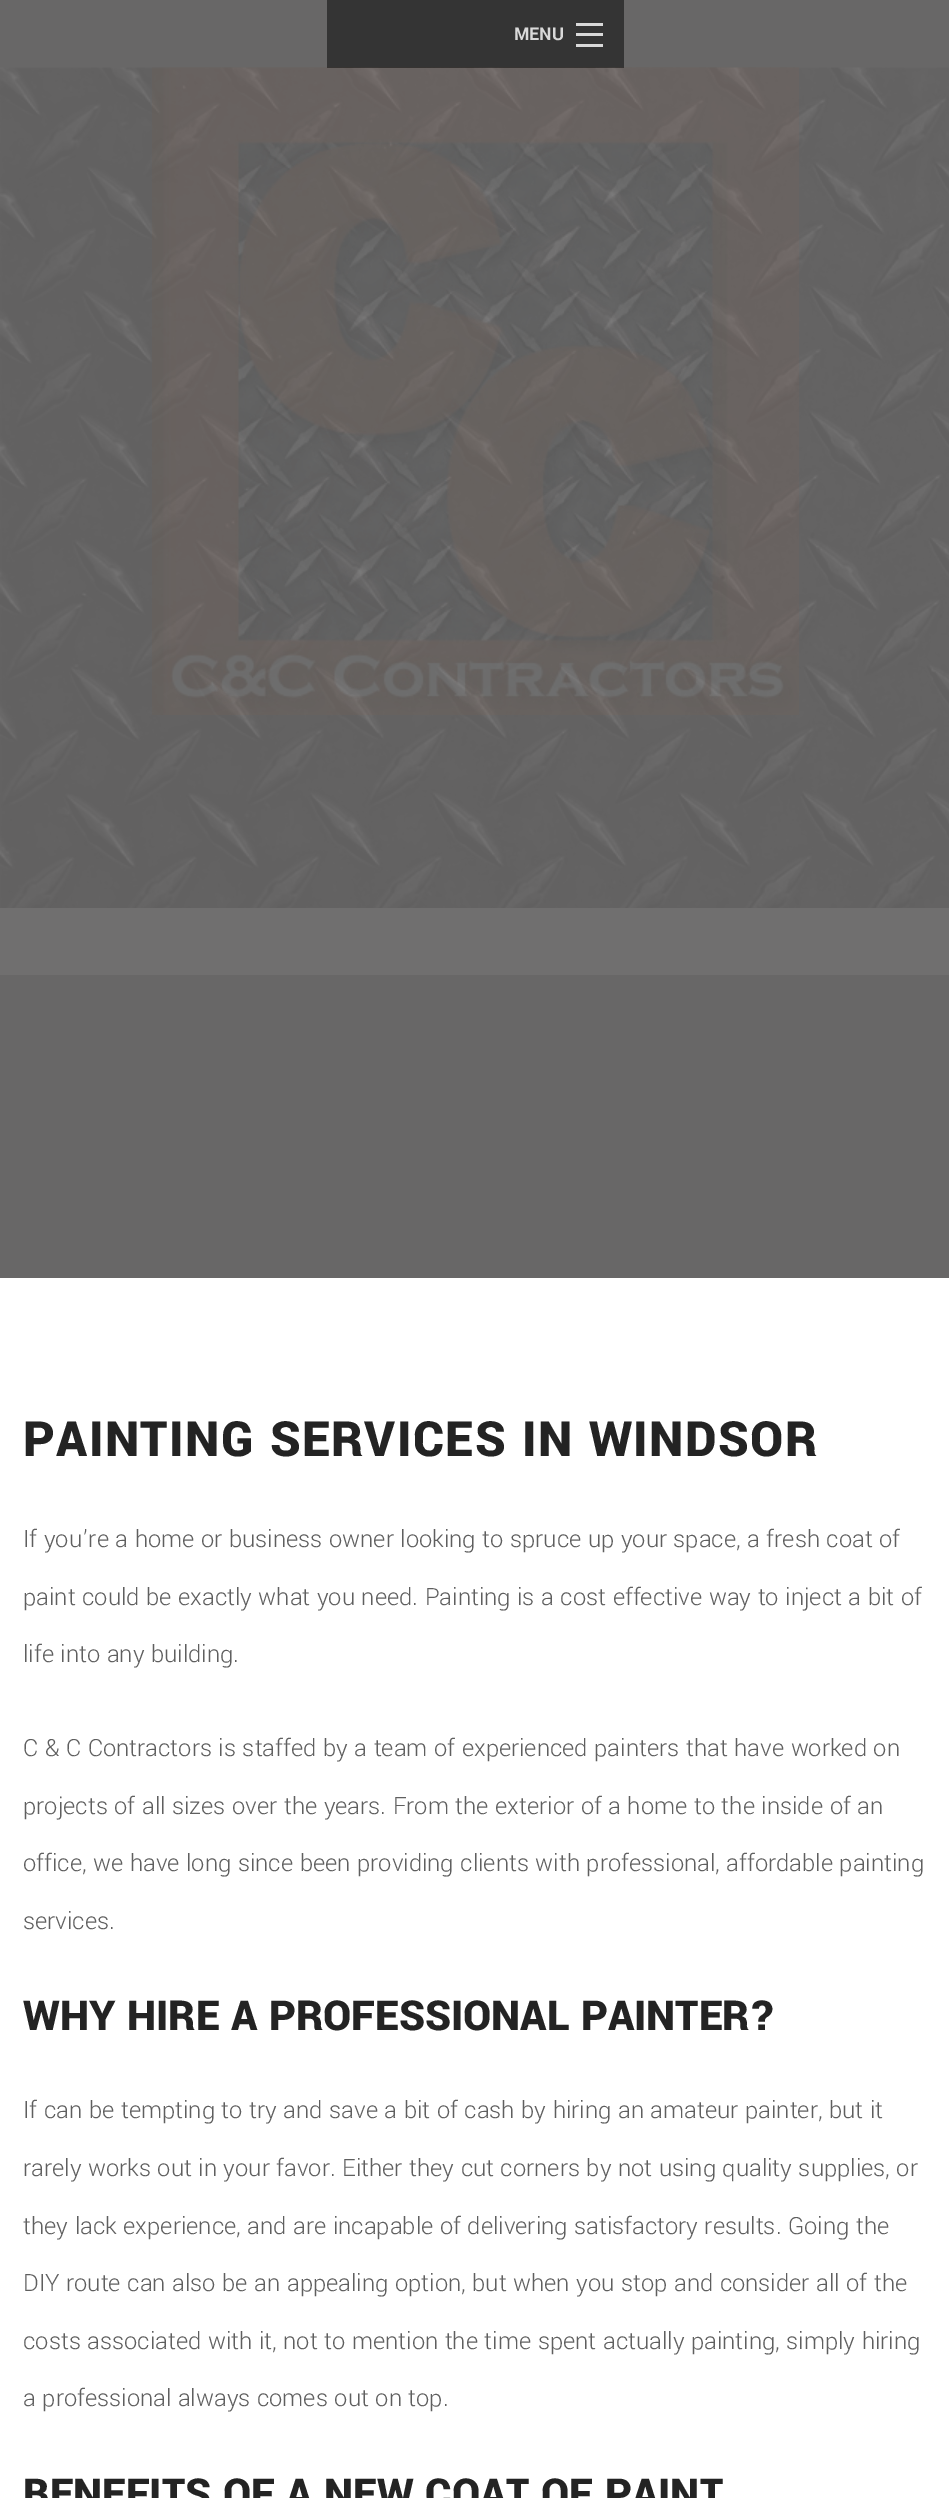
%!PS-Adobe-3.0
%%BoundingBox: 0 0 949 2498
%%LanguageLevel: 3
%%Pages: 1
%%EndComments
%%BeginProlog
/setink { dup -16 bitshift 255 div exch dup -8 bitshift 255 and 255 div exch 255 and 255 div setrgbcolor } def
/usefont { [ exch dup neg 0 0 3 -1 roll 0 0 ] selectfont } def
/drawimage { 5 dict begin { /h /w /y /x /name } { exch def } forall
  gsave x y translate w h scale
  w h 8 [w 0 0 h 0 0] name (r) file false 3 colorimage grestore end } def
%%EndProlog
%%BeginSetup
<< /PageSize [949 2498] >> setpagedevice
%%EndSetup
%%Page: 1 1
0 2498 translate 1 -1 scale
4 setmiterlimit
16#FFFFFF setink
0 0 949 2498 rectfill
16#686767 setink
0 0 949 1278 rectfill
16#343434 setink
327 0 297 68 rectfill
/Yantramanav-Bold 19.5 usefont
16#D9D9D9 setink
514 40 moveto (MENU) show
[
    [576 44 27 3 16#D9D9D9]
    [576 33 27 3 16#D9D9D9]
    [576 23 27 3 16#D9D9D9]
] { aload pop setink rectfill } forall
(img1.raw) 0 67 949 841 drawimage
(img2.raw) 152 67 647 648 drawimage
16#706F6F setink
0 908 949 67 rectfill
/Yantramanav-Black 54 usefont
16#232323 setink
23 1456 moveto 1.45 0 (PAINTING SERVICES IN WINDSOR) ashow
/Yantramanav-Light 26.4 usefont
16#5F5F5F setink
[
    [(If you’re a home or business owner looking to spruce up your space, a fresh coat of) 23 1547]
    [(paint could be exactly what you need. Painting is a cost effective way to inject a bit of) 23 1605]
    [(life into any building.) 23 1662]
    [(C & C Contractors is staffed by a team of experienced painters that have worked on) 23 1756]
    [(projects of all sizes over the years. From the exterior of a home to the inside of an) 23 1814]
    [(office, we have long since been providing clients with professional, affordable painting) 23 1871]
    [(services.) 23 1929]
] { aload pop moveto show } forall
/Yantramanav-Black 45.9 usefont
16#232323 setink
23 2030 moveto (WHY HIRE A PROFESSIONAL PAINTER?) show
/Yantramanav-Light 26.4 usefont
16#5F5F5F setink
[
    [(If can be tempting to try and save a bit of cash by hiring an amateur painter, but it) 23 2118]
    [(rarely works out in your favor. Either they cut corners by not using quality supplies, or) 23 2176]
    [(they lack experience, and are incapable of delivering satisfactory results. Going the) 23 2234]
    [(DIY route can also be an appealing option, but when you stop and consider all of the) 23 2291]
    [(costs associated with it, not to mention the time spent actually painting, simply hiring) 23 2349]
    [(a professional always comes out on top.) 23 2406]
] { aload pop moveto show } forall
/Yantramanav-Black 45.9 usefont
16#232323 setink
23 2508 moveto (BENEFITS OF A NEW COAT OF PAINT) show
showpage
%%EOF
